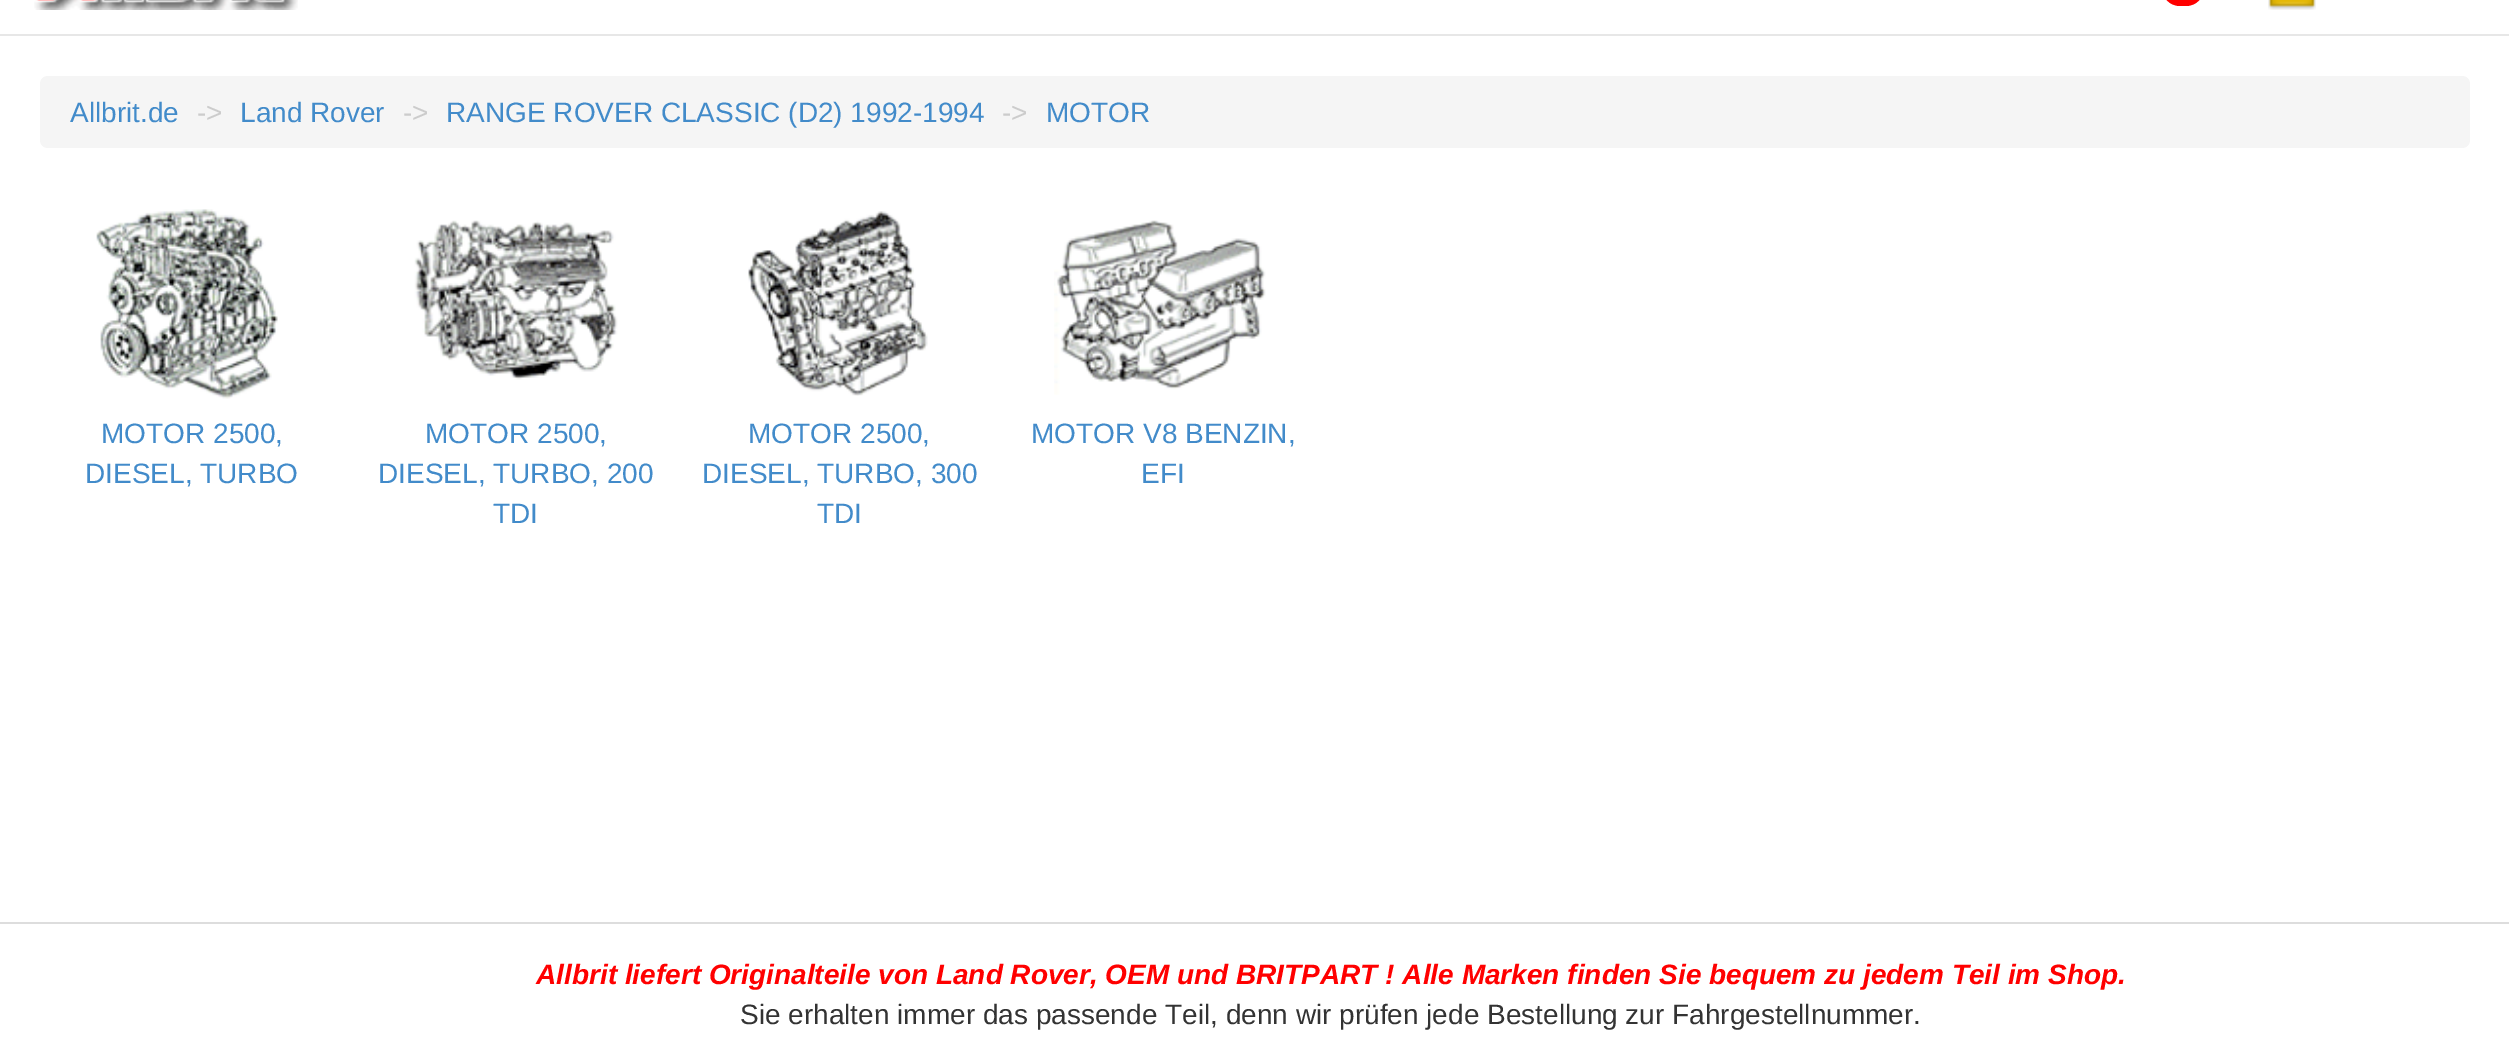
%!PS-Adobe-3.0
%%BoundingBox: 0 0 2509 1051
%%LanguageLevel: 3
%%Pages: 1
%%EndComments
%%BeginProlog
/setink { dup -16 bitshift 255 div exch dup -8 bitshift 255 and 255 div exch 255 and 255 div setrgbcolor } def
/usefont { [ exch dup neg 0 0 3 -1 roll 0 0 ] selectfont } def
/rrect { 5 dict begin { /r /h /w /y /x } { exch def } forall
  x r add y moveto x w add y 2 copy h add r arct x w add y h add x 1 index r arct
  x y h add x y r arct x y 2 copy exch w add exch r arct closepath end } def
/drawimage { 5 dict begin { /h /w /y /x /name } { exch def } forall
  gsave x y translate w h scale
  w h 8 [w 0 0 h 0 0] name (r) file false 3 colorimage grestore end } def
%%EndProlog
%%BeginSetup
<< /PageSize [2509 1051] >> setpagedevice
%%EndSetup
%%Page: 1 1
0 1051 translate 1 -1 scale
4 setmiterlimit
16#FFFFFF setink
0 0 2509 1051 rectfill
16#E7E7E7 setink
0 34 2509 2 rectfill
(img1.raw) 34 0 264 10 drawimage
16#FF0000 setink
2162 -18 42 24 18 rrect fill
(img2.raw) 2268 0 48 10 drawimage
16#F5F5F5 setink
40 76 2430 72 8 rrect fill
/LiberationSans-Regular 28 usefont
16#428BCA setink
70 122 moveto (Allbrit.de) show
16#CCCCCC setink
197 122 moveto (->) show
16#428BCA setink
240 122 moveto (Land Rover) show
16#CCCCCC setink
403 122 moveto (->) show
16#428BCA setink
446 122 moveto (RANGE ROVER CLASSIC \(D2\) 1992-1994) show
16#CCCCCC setink
1002 122 moveto (->) show
16#428BCA setink
1046 122 moveto (MOTOR) show
(img3.raw) 96 209 182 190 drawimage
101 443 moveto (MOTOR 2500,) show
85 483 moveto (DIESEL, TURBO) show
(img4.raw) 414 220 204 160 drawimage
[
    [(MOTOR 2500,) 425 443]
    [(DIESEL, TURBO, 200) 378 483]
    [(TDI) 493 523]
] { aload pop moveto show } forall
(img5.raw) 748 211 180 185 drawimage
[
    [(MOTOR 2500,) 748 443]
    [(DIESEL, TURBO, 300) 702 483]
    [(TDI) 817 523]
] { aload pop moveto show } forall
(img6.raw) 1054 220 212 175 drawimage
1031 443 moveto (MOTOR V8 BENZIN,) show
1141 483 moveto (EFI) show
16#DDDDDD setink
0 922 2509 2 rectfill
/LiberationSans-BoldItalic 28 usefont
16#FF0000 setink
536 984 moveto (Allbrit liefert Originalteile von Land Rover, OEM und BRITPART ! Alle Marken finden Sie bequem zu jedem Teil im Shop.) show
/LiberationSans-Regular 28 usefont
16#333333 setink
740 1024 moveto (Sie erhalten immer das passende Teil, denn wir prüfen jede Bestellung zur Fahrgestellnummer.) show
showpage
%%EOF
